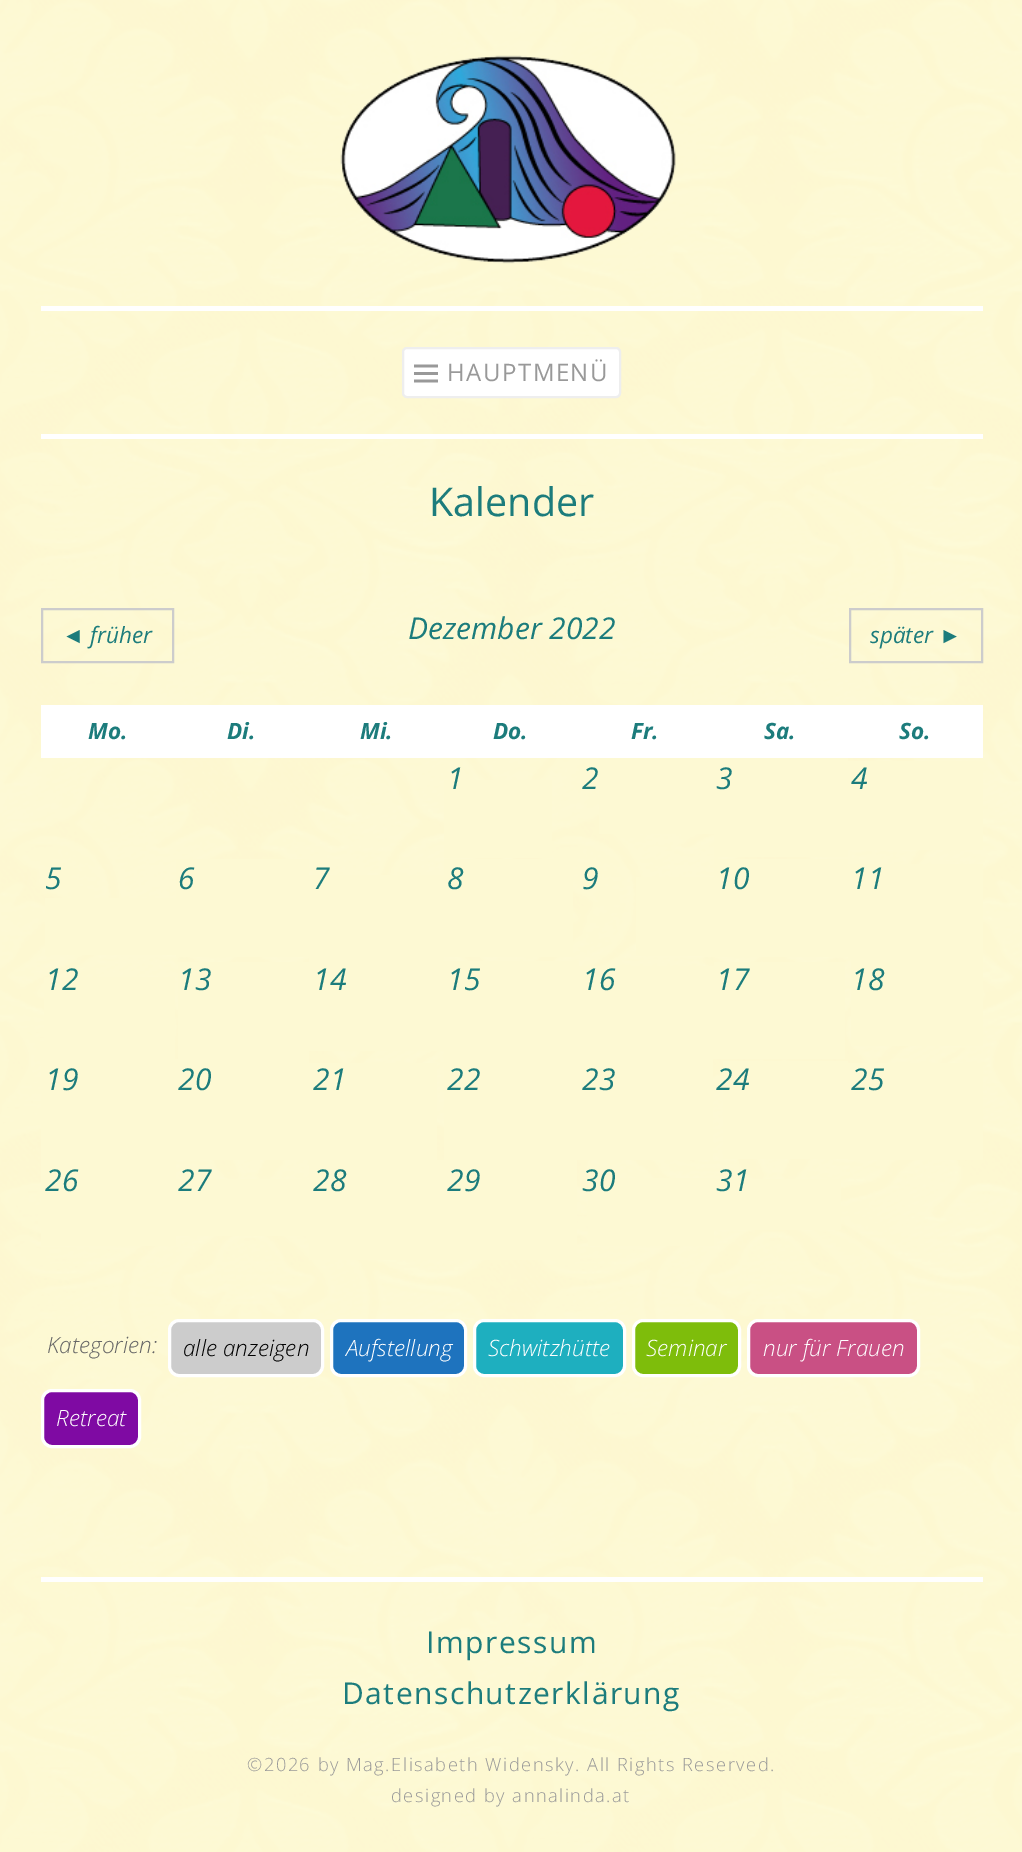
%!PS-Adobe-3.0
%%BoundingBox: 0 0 1022 1852
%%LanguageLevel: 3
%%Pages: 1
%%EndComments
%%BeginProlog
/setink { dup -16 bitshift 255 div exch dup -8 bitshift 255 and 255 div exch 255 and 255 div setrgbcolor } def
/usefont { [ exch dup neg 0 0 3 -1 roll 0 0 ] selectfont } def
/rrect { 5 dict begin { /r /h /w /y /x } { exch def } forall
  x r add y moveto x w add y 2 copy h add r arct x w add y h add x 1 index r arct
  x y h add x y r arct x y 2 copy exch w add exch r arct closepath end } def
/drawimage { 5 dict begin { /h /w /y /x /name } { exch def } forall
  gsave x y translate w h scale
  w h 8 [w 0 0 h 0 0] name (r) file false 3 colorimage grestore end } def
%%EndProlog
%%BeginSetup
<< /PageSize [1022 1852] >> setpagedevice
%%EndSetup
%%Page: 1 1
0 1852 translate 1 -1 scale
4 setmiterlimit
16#FFFFFF setink
0 0 1022 1852 rectfill
(img1.raw) 0 0 1022 1852 drawimage
41 434 942 5 rectfill
(img2.raw) 340 55 336 209 drawimage
41 306 942 5 rectfill
403 348 217 49 4 rrect gsave fill grestore
16#EEEEEE setink
2 setlinewidth
stroke
(img3.raw) 414 364 24 19 drawimage
/OpenSans-Regular 24 usefont
16#999999 setink
447 381 moveto 1.5 0 (HAUPTMENÜ) ashow
/OpenSans-Regular 39.5 usefont
16#1C7C7C setink
429 516 moveto (Kalender) show
16#CCCCCC setink
42 609 131 53 rectstroke
/LiberationSerif-Italic 22.5 usefont
16#1C7C7C setink
62 643 moveto (◄) show
/OpenSans-Italic 22.5 usefont
90 643 moveto (früher) show
/OpenSans-Italic 30 usefont
408 639 moveto (Dezember 2022) show
16#CCCCCC setink
850 609 132 53 rectstroke
/OpenSans-Italic 22.5 usefont
16#1C7C7C setink
870 643 moveto (später) show
/LiberationSerif-Italic 22.5 usefont
939 643 moveto (►) show
16#FFFFFF setink
41 705 942 53 rectfill
/OpenSans-BoldItalic 22.5 usefont
16#1C7C7C setink
[
    [(Mo.) 88 739]
    [(Di.) 227 739]
    [(Mi.) 360 739]
    [(Do.) 493 739]
    [(Fr.) 631 739]
    [(Sa.) 764 739]
    [(So.) 899 739]
] { aload pop moveto show } forall
16#FDF9D3 setink
444 780 108 78 rectfill
/OpenSans-Italic 30 usefont
16#1C7C7C setink
447 789 moveto (1) show
16#FDF9D3 setink
599 758 115 76 rectfill
16#1C7C7C setink
582 789 moveto (2) show
16#FDF9D3 setink
714 758 134 99 rectfill
16#1C7C7C setink
716 789 moveto (3) show
16#FDF9D3 setink
848 761 135 89 rectfill
16#1C7C7C setink
851 789 moveto (4) show
16#FDF9D3 setink
45 898 131 57 rectfill
16#1C7C7C setink
45 889 moveto (5) show
16#FDF9D3 setink
176 859 133 98 rectfill
16#1C7C7C setink
178 889 moveto (6) show
16#FDF9D3 setink
309 875 135 176 rectfill
16#1C7C7C setink
313 889 moveto (7) show
16#FDF9D3 setink
444 859 129 98 rectfill
16#1C7C7C setink
447 889 moveto (8) show
16#FDF9D3 setink
636 877 78 79 rectfill
16#1C7C7C setink
582 889 moveto (9) show
16#FDF9D3 setink
714 859 134 98 rectfill
16#1C7C7C setink
716 889 moveto (10) show
16#FDF9D3 setink
848 864 135 95 rectfill
16#1C7C7C setink
851 889 moveto (11) show
16#FDF9D3 setink
44 977 131 82 rectfill
16#1C7C7C setink
45 990 moveto (12) show
16#FDF9D3 setink
178 962 131 97 rectfill
16#1C7C7C setink
178 990 moveto (13) show
313 990 moveto (14) show
16#FDF9D3 setink
444 961 135 199 rectfill
16#1C7C7C setink
447 990 moveto (15) show
16#FDF9D3 setink
579 966 135 93 rectfill
16#1C7C7C setink
582 990 moveto (16) show
16#FDF9D3 setink
714 962 131 97 rectfill
16#1C7C7C setink
716 990 moveto (17) show
16#FDF9D3 setink
851 959 132 87 rectfill
16#1C7C7C setink
851 990 moveto (18) show
16#FDF9D3 setink
41 1059 268 101 rectfill
16#1C7C7C setink
45 1090 moveto (19) show
178 1090 moveto (20) show
16#FDF9D3 setink
309 1063 128 97 rectfill
16#1C7C7C setink
313 1090 moveto (21) show
447 1090 moveto (22) show
16#FDF9D3 setink
579 1059 134 101 rectfill
16#1C7C7C setink
582 1090 moveto (23) show
16#FDF9D3 setink
723 1061 125 98 rectfill
16#1C7C7C setink
716 1090 moveto (24) show
16#FDF9D3 setink
848 1063 135 97 rectfill
16#1C7C7C setink
851 1090 moveto (25) show
16#FDF9D3 setink
41 1160 135 86 rectfill
16#1C7C7C setink
45 1191 moveto (26) show
16#FDF9D3 setink
176 1179 133 57 rectfill
16#1C7C7C setink
178 1191 moveto (27) show
16#FDF9D3 setink
309 1160 268 100 rectfill
16#1C7C7C setink
313 1191 moveto (28) show
447 1191 moveto (29) show
16#FDF9D3 setink
588 1178 126 68 rectfill
16#1C7C7C setink
582 1191 moveto (30) show
16#FDF9D3 setink
714 1179 127 51 rectfill
16#1C7C7C setink
716 1191 moveto (31) show
/OpenSans-LightItalic 22.5 usefont
16#666666 setink
47 1353 moveto (Kategorien:) show
16#CCCCCC setink
169.5 1320.5 153 55 9.5 rrect gsave fill grestore
16#FFFFFF setink
3 setlinewidth
stroke
16#000000 setink
183 1356 moveto (alle anzeigen) show
16#1E73BE setink
331.5 1320.5 134 55 9.5 rrect gsave fill grestore
16#FFFFFF setink
stroke
346 1356 moveto (Aufstellung) show
16#1EAFBF setink
474.5 1320.5 150 55 9.5 rrect gsave fill grestore
16#FFFFFF setink
stroke
488 1356 moveto (Schwitzhütte) show
16#7EBD0B setink
633.5 1320.5 106 55 9.5 rrect gsave fill grestore
16#FFFFFF setink
stroke
646 1356 moveto (Seminar) show
16#C95084 setink
748.5 1320.5 170 55 9.5 rrect gsave fill grestore
16#FFFFFF setink
stroke
763 1356 moveto (nur für Frauen) show
16#7F0AA3 setink
42.5 1390.5 97 56 9.5 rrect gsave fill grestore
16#FFFFFF setink
stroke
56 1426 moveto (Retreat) show
41 1577 942 5 rectfill
/OpenSans-Regular 30 usefont
16#1C7C7C setink
426 1653 moveto 1.5 0 (Impressum) ashow
342 1704 moveto 1.5 0 (Datenschutzerklärung) ashow
/OpenSans-Light 18.25 usefont
16#999999 setink
247 1771 moveto 1.5 0 (©2026 by Mag.Elisabeth Widensky. All Rights Reserved.) ashow
391 1802 moveto 1.5 0 (designed by annalinda.at) ashow
showpage
%%EOF
